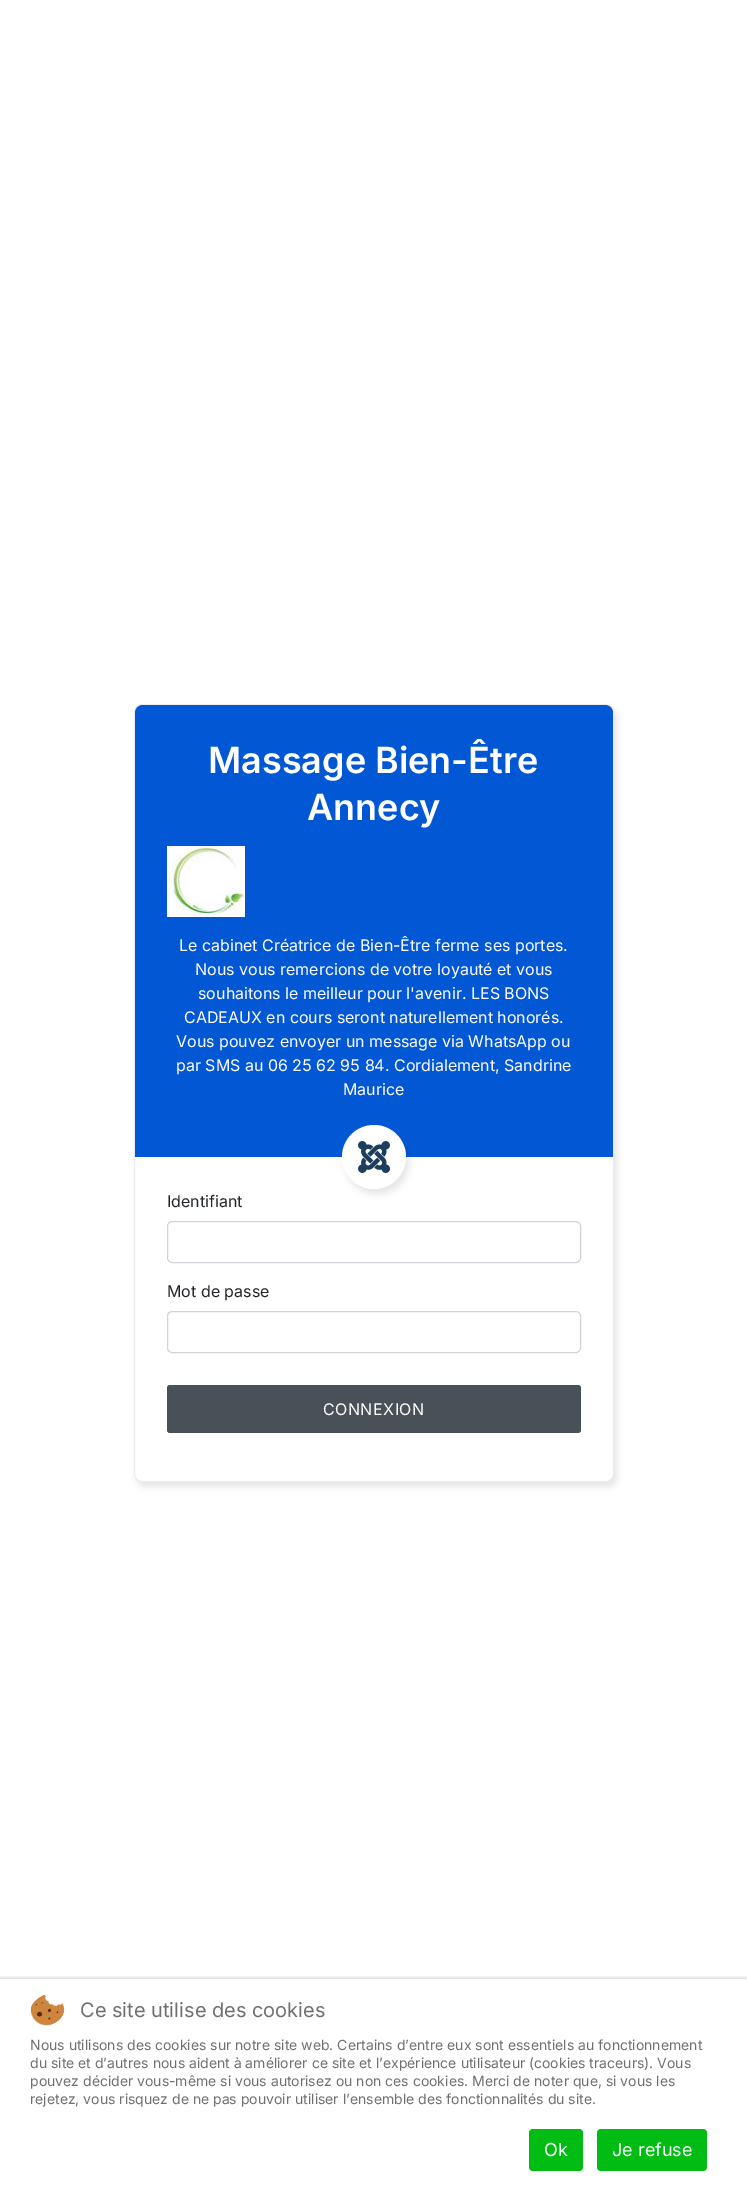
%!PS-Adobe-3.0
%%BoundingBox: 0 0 747 2186
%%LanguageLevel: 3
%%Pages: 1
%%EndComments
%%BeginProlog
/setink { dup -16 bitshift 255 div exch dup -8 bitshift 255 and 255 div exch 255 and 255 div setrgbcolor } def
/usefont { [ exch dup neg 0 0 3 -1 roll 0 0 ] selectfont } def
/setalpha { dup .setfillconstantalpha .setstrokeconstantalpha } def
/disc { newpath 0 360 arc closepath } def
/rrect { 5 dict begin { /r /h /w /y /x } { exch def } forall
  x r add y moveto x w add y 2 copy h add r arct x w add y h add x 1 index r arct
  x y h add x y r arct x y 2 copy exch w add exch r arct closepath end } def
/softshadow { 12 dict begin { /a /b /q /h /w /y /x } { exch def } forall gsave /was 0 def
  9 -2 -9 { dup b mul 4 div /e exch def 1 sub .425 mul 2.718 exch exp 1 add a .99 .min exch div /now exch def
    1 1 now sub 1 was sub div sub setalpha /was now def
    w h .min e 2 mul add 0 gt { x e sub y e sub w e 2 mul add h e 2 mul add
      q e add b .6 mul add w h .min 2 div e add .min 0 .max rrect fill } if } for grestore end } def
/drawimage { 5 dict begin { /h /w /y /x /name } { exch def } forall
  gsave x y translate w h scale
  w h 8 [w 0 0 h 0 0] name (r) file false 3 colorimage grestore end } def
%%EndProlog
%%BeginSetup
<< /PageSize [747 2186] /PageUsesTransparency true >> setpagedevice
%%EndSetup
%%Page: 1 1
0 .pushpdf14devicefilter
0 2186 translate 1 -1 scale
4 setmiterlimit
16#FFFFFF setink
0 0 747 2186 rectfill
16#000000 setink
137 709 480 778 8 3.5 0.1 softshadow
16#FFFFFF setink
134.5 704.5 479 777 7.5 rrect gsave fill grestore
16#E9ECEF setink
stroke
16#0257D5 setink
143 705 moveto 605 705 lineto 609.5 705 613 708.5 613 713 curveto 613 1157 lineto 135 1157 lineto 135 713 lineto 135 708.5 138.5 705 143 705 curveto closepath fill
/Inter-SemiBold 36 usefont
16#FFFFFF setink
208 773 moveto (Massage Bien-Être) show
307 820 moveto (Annecy) show
(img1.raw) 167 846 78 71 drawimage
/Inter-Regular 16 usefont
[
    [(Le cabinet Créatrice de Bien-Être ferme ses portes.) 179 951]
    [(Nous vous remercions de votre loyauté et vous) 195 975]
    [(souhaitons le meilleur pour l'avenir. LES BONS) 198 999]
    [(CADEAUX en cours seront naturellement honorés.) 184 1023]
    [(Vous pouvez envoyer un message via WhatsApp ou) 176 1047]
    [(par SMS au 06 25 62 95 84. Cordialement, Sandrine) 176 1071]
    [(Maurice) 343 1095]
] { aload pop moveto show } forall
16#000000 setink
345 1130 64 64 32 3.5 0.1 softshadow
16#FFFFFF setink
374 1157 32 disc fill
(img2.raw) 358 1141 32 32 drawimage
16#212529 setink
167 1207 moveto (Identifiant) show
16#CED4DA setink
167.5 1221.5 413 41 4.5 rrect stroke
16#212529 setink
167 1297 moveto (Mot de passe) show
16#CED4DA setink
167.5 1311.5 413 41 4.5 rrect stroke
16#495057 setink
167 1385 414 48 3 rrect fill
16#FFFFFF setink
323 1415 moveto 0.5 0 (CONNEXION) ashow
gsave
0 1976 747 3 rectclip
16#000000 setink
0 1979 747 207 0 2.5 0.25 softshadow
grestore
(img3.raw) 30 1994 35 32 drawimage
/Inter-Regular 20 usefont
16#707070 setink
80 2017 moveto (Ce site utilise des cookies) show
/Inter-Regular 14 usefont
[
    [(Nous utilisons des cookies sur notre site web. Certains d’entre eux sont essentiels au fonctionnement) 30 2050]
    [(du site et d’autres nous aident à améliorer ce site et l’expérience utilisateur \(cookies traceurs\). Vous) 30 2068]
    [(pouvez décider vous-même si vous autorisez ou non ces cookies. Merci de noter que, si vous les) 30 2086]
    [(rejetez, vous risquez de ne pas pouvoir utiliser l’ensemble des fonctionnalités du site.) 30 2104]
] { aload pop moveto show } forall
16#00BC13 setink
529 2129 54 42 4 rrect fill
/Inter-Regular 18 usefont
16#FFFFFF setink
544 2156 moveto (Ok) show
16#00BC13 setink
597 2129 110 42 4 rrect fill
16#FFFFFF setink
612 2156 moveto (Je refuse) show
.poppdf14devicefilter showpage
%%EOF
